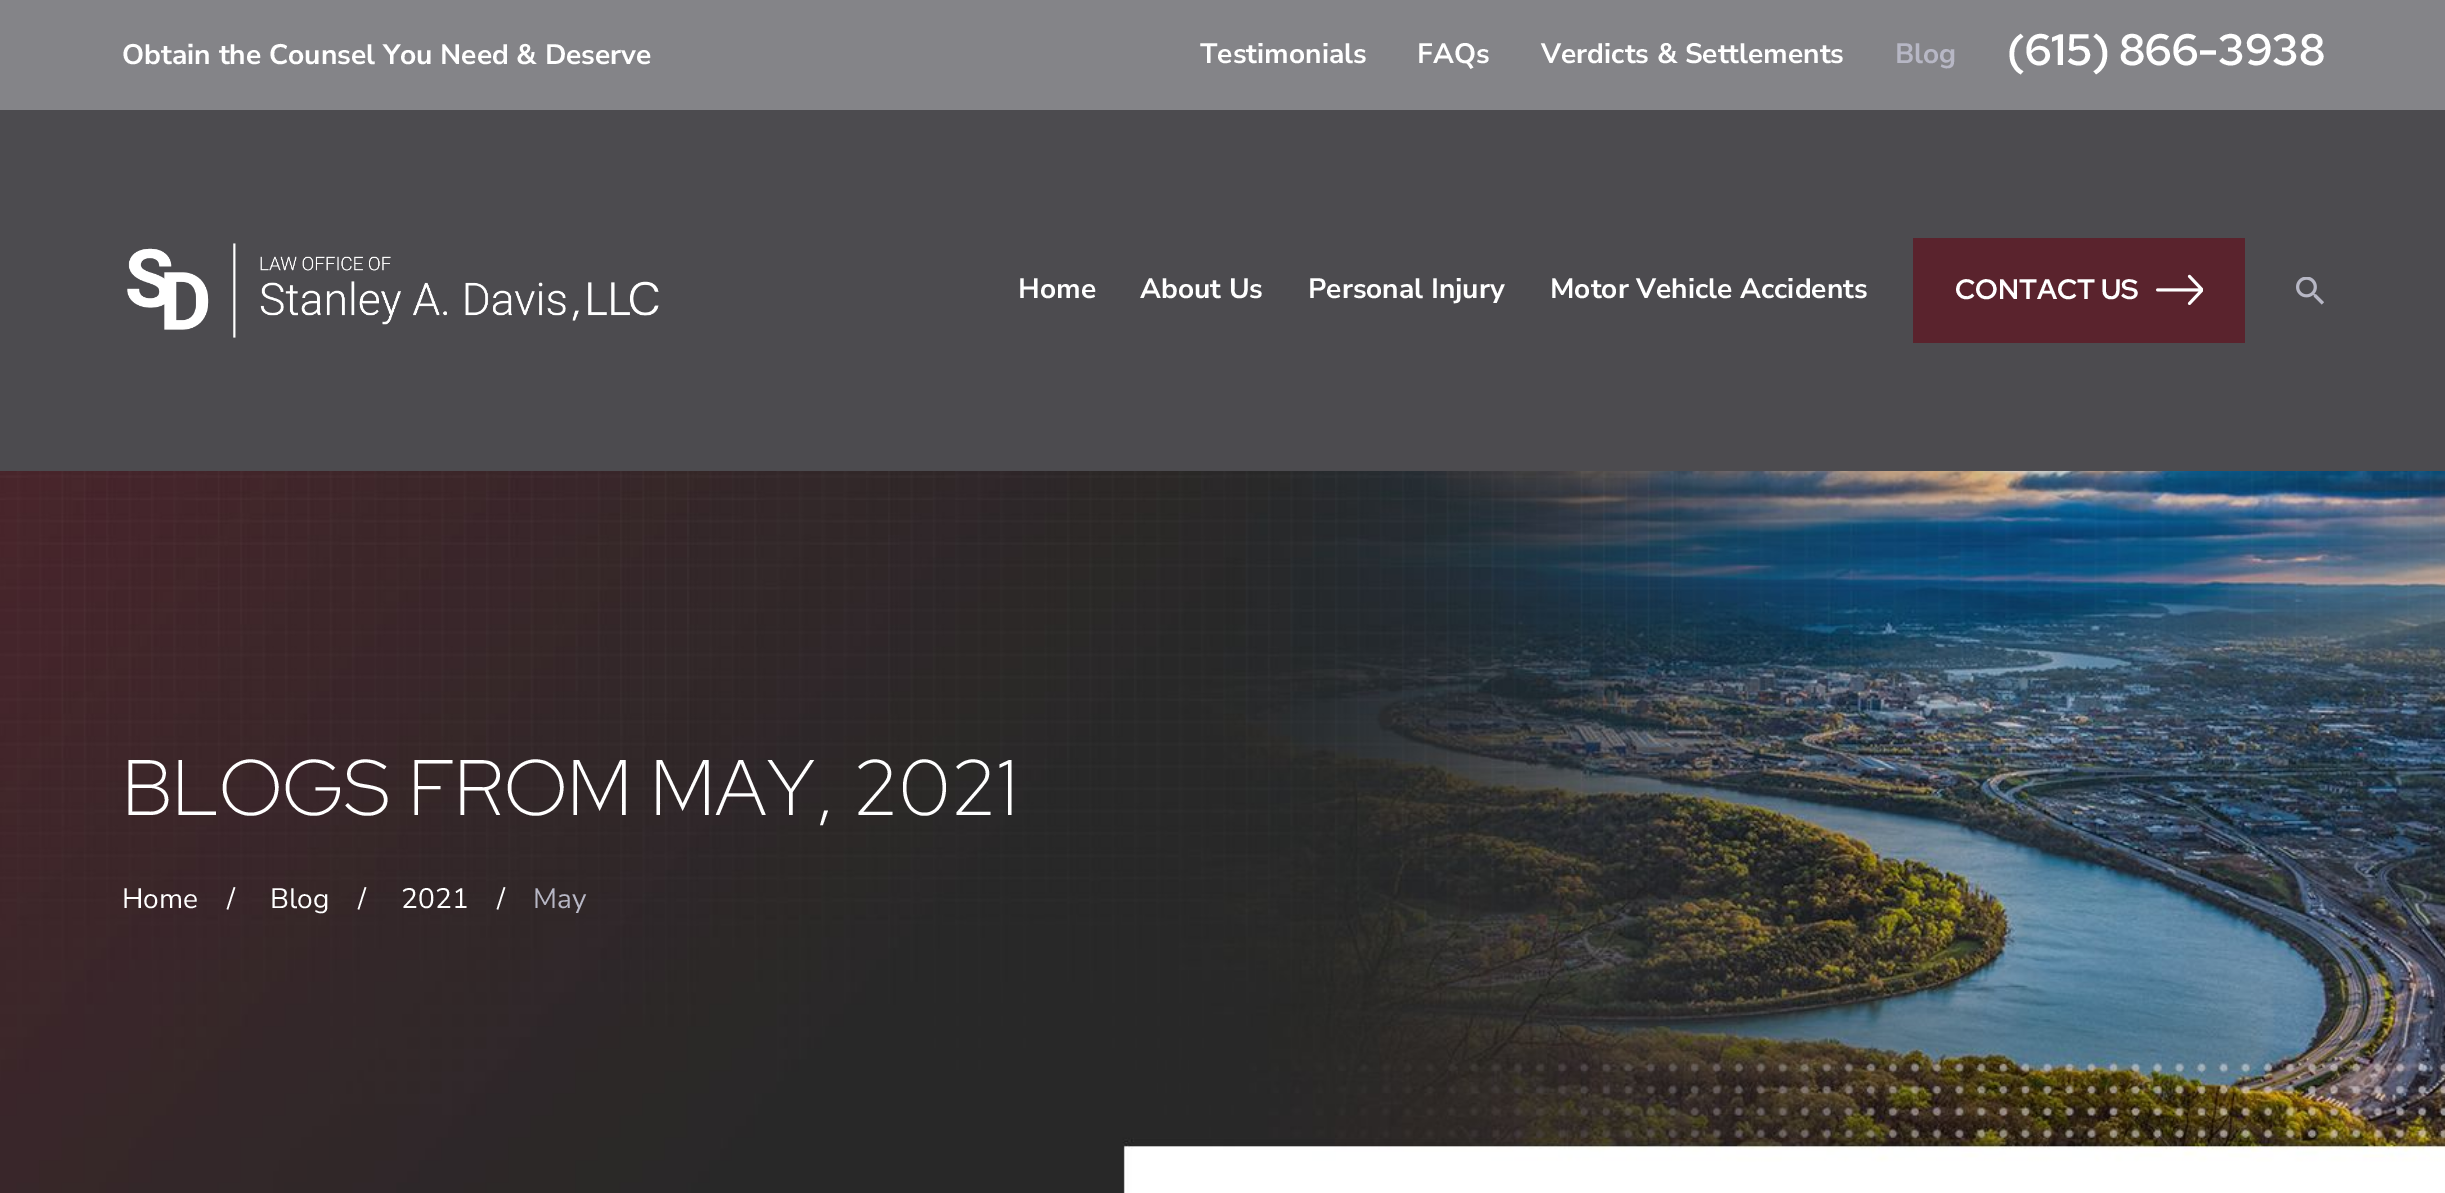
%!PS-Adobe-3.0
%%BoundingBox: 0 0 2445 1193
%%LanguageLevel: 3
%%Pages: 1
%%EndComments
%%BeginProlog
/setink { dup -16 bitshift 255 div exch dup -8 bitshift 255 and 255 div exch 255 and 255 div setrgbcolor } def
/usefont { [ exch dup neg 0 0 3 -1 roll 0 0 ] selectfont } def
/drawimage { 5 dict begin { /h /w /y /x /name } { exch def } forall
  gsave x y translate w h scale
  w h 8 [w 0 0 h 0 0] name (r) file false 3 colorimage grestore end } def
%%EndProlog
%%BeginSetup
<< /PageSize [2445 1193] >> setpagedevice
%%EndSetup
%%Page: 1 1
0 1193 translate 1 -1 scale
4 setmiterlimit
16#FFFFFF setink
0 0 2445 1193 rectfill
16#4C4B4F setink
0 110 2445 361 rectfill
16#848488 setink
0 0 2445 110 rectfill
/NunitoSans-Bold 28.2 usefont
16#FFFFFF setink
122 64 moveto (Obtain the Counsel You Need & Deserve) show
/NunitoSans-Bold 28.1 usefont
[
    [(Testimonials) 1200 63]
    [(FAQs) 1417 63]
    [(Verdicts & Settlements) 1541 63]
] { aload pop moveto show } forall
16#B7B7C5 setink
1895 63 moveto (Blog) show
/RedHatDisplay-Bold 44 usefont
16#FFFFFF setink
2007 65 moveto (\(615\) 866-3938) show
(img1.raw) 127 243 532 95 drawimage
/NunitoSans-Bold 28.1 usefont
[
    [(Home) 1018 298]
    [(About Us) 1140 298]
    [(Personal Injury) 1308 298]
    [(Motor Vehicle Accidents) 1550 298]
] { aload pop moveto show } forall
16#5A232D setink
1913 238 332 105 rectfill
/RedHatDisplay-Bold 28.1 usefont
16#FFFFFF setink
1955 299 moveto (CONTACT US) show
(img2.raw) 2156 274 47 31 drawimage
(img3.raw) 2296 277 28 28 drawimage
(img4.raw) 0 471 2445 722 drawimage
/RedHatDisplay-Light 78.6 usefont
122 815 moveto (BLOGS FROM MAY, 2021) show
/NunitoSans-Regular 28.1 usefont
[
    [(Home) 122 908]
    [(/) 227 908]
    [(Blog) 270 908]
    [(/) 358 908]
    [(2021) 401 908]
    [(/) 497 908]
] { aload pop moveto show } forall
16#B7B7C5 setink
533 908 moveto (May) show
showpage
%%EOF
